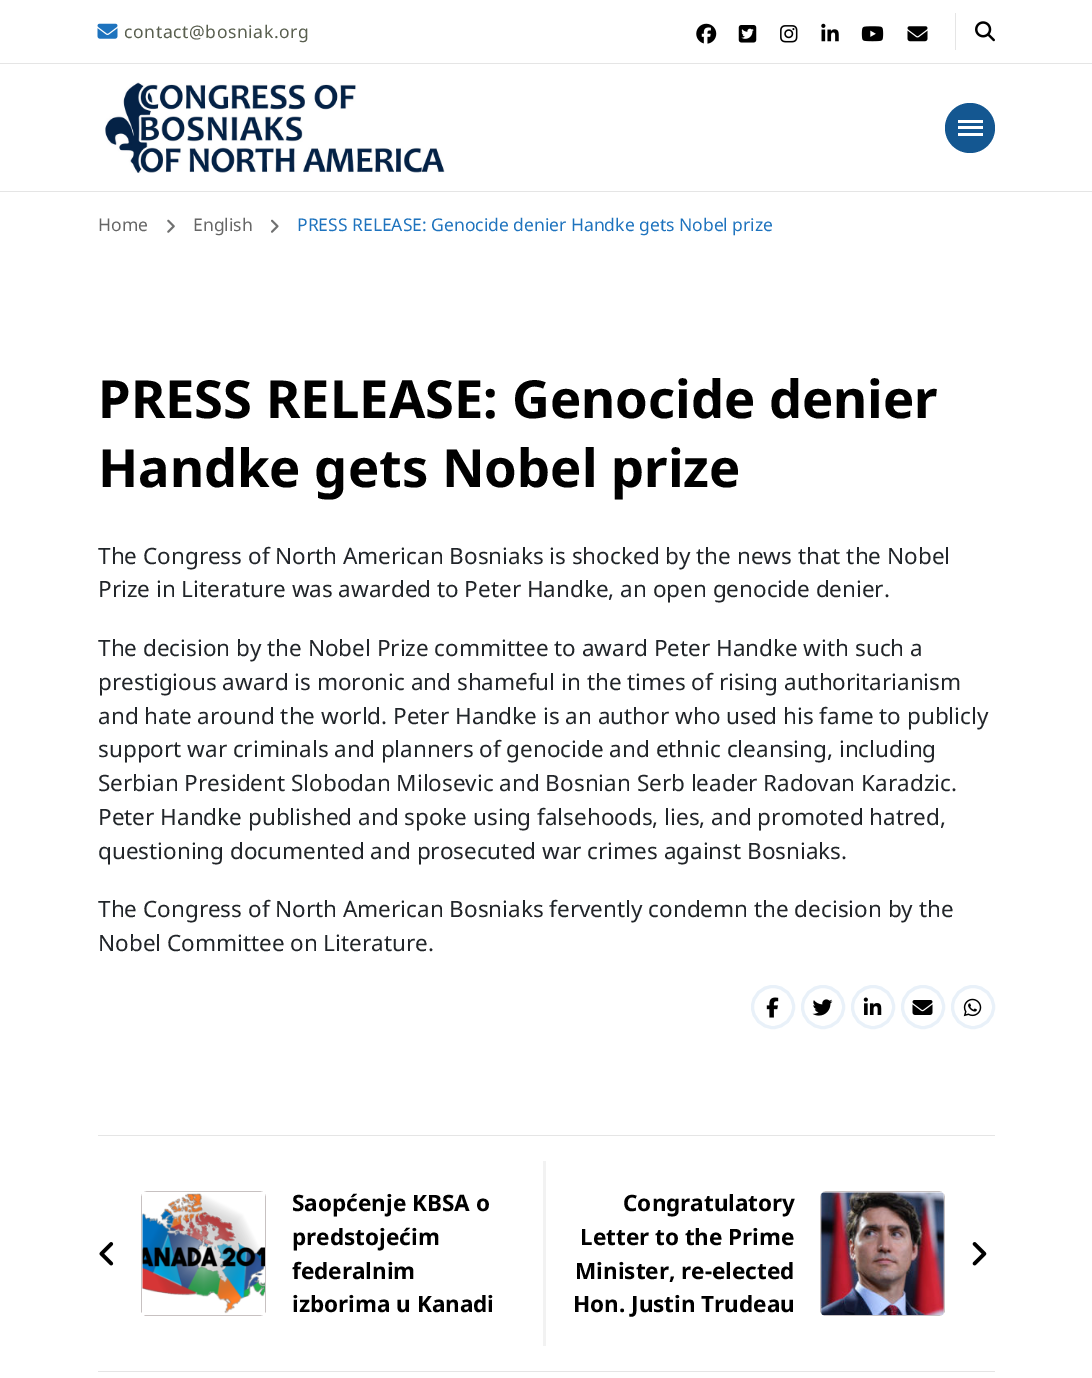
%!PS-Adobe-3.0
%%BoundingBox: 0 0 1092 1378
%%LanguageLevel: 3
%%Pages: 1
%%EndComments
%%BeginProlog
/setink { dup -16 bitshift 255 div exch dup -8 bitshift 255 and 255 div exch 255 and 255 div setrgbcolor } def
/usefont { [ exch dup neg 0 0 3 -1 roll 0 0 ] selectfont } def
/disc { newpath 0 360 arc closepath } def
/drawimage { 5 dict begin { /h /w /y /x /name } { exch def } forall
  gsave x y translate w h scale
  w h 8 [w 0 0 h 0 0] name (r) file false 3 colorimage grestore end } def
%%EndProlog
%%BeginSetup
<< /PageSize [1092 1378] >> setpagedevice
%%EndSetup
%%Page: 1 1
0 1378 translate 1 -1 scale
4 setmiterlimit
16#FFFFFF setink
0 0 1092 1378 rectfill
16#E5E5E5 setink
0 191 1092 1 rectfill
0 63 1092 1 rectfill
(img1.raw) 97 23 21 16 drawimage
/NotoSans-Regular 17.5 usefont
16#595F4F setink
124 38 moveto 0.6 0 (contact@bosniak.org) ashow
(img2.raw) 696 23 21 21 drawimage
(img3.raw) 738 25 19 18 drawimage
(img4.raw) 780 25 18 18 drawimage
(img5.raw) 821 23 18 19 drawimage
(img6.raw) 861 26 23 16 drawimage
(img7.raw) 907 26 21 16 drawimage
16#E5E5E5 setink
955 13 1 37 rectfill
(img8.raw) 975 21 20 21 drawimage
(img9.raw) 105 82 340 91 drawimage
16#145791 setink
970 128 25 disc fill
[
    [958 120 25 3 16#FFFFFF]
    [958 126 25 3 16#FFFFFF]
    [958 133 25 3 16#FFFFFF]
] { aload pop setink rectfill } forall
16#666666 setink
98 231 moveto (Home) show
(img10.raw) 167 219 8 14 drawimage
193 231 moveto (English) show
(img11.raw) 271 219 8 14 drawimage
16#1E73BE setink
297 231 moveto (PRESS RELEASE: Genocide denier Handke gets Nobel prize) show
/NotoSans-Bold 52.5 usefont
16#000000 setink
98 418 moveto (PRESS RELEASE: Genocide denier) show
98 487 moveto (Handke gets Nobel prize) show
/NotoSans-Regular 22.5 usefont
16#212529 setink
[
    [(The Congress of North American Bosniaks is shocked by the news that the Nobel) 98 564]
    [(Prize in Literature was awarded to Peter Handke, an open genocide denier.) 98 597]
    [(The decision by the Nobel Prize committee to award Peter Handke with such a) 98 656]
    [(prestigious award is moronic and shameful in the times of rising authoritarianism) 98 690]
    [(and hate around the world. Peter Handke is an author who used his fame to publicly) 98 724]
    [(support war criminals and planners of genocide and ethnic cleansing, including) 98 757]
    [(Serbian President Slobodan Milosevic and Bosnian Serb leader Radovan Karadzic.) 98 791]
    [(Peter Handke published and spoke using falsehoods, lies, and promoted hatred,) 98 825]
    [(questioning documented and prosecuted war crimes against Bosniaks.) 98 859]
    [(The Congress of North American Bosniaks fervently condemn the decision by the) 98 917]
    [(Nobel Committee on Literature.) 98 951]
] { aload pop moveto show } forall
16#E9F1F9 setink
3 setlinewidth
773 1007 20.5 disc stroke
(img12.raw) 766 997 13 21 drawimage
823 1007 20.5 disc stroke
(img13.raw) 812 999 21 17 drawimage
873 1007 20.5 disc stroke
(img14.raw) 863 997 19 18 drawimage
923 1007 20.5 disc stroke
(img15.raw) 912 1000 21 15 drawimage
973 1007 20.5 disc stroke
(img16.raw) 963 998 19 19 drawimage
16#E5E5E5 setink
98 1135 897 1 rectfill
98 1371 897 1 rectfill
(img17.raw) 99 1242 15 24 drawimage
16#C7C1C1 setink
141 1197 moveto 141 1310 lineto 141 1311 141 1312 142 1313 curveto 142 1194 lineto closepath 147 1191 moveto 144 1192 lineto 263 1192 lineto 260 1191 lineto closepath 266 1197 moveto 265 1194 lineto 265 1313 lineto 266 1312 266 1311 266 1310 curveto closepath 260 1316 moveto 263 1315 lineto 144 1315 lineto 145 1316 146 1316 147 1316 curveto closepath eofill
(img18.raw) 142 1193 123 121 drawimage
/NotoSans-Bold 22.5 usefont
16#000000 setink
[
    [(Saopćenje KBSA o) 292 1211]
    [(predstojećim) 292 1245]
    [(federalnim) 292 1279]
    [(izborima u Kanadi) 292 1312]
] { aload pop moveto show } forall
16#F2F2F2 setink
543 1161 3 185 rectfill
16#000000 setink
[
    [(Congratulatory) 623 1211]
    [(Letter to the Prime) 580 1245]
    [(Minister, re-elected) 575 1279]
    [(Hon. Justin Trudeau) 573 1312]
] { aload pop moveto show } forall
16#C7C1C1 setink
820 1197 moveto 820 1310 lineto 820 1311 820 1312 821 1313 curveto 821 1194 lineto closepath 826 1191 moveto 823 1192 lineto 942 1192 lineto 939 1191 lineto closepath 945 1197 moveto 944 1194 lineto 944 1313 lineto 945 1312 945 1311 945 1310 curveto closepath 939 1316 moveto 942 1315 lineto 823 1315 lineto 824 1316 825 1316 826 1316 curveto closepath eofill
(img19.raw) 821 1192 123 123 drawimage
(img20.raw) 972 1242 15 24 drawimage
showpage
%%EOF
